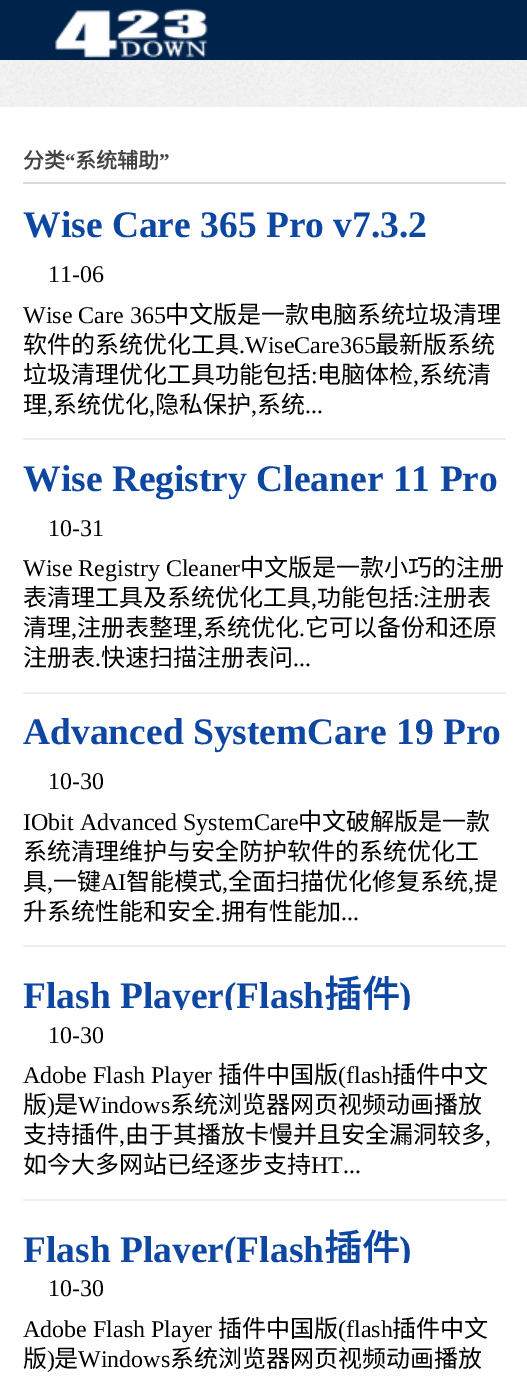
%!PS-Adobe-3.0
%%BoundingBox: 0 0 527 1389
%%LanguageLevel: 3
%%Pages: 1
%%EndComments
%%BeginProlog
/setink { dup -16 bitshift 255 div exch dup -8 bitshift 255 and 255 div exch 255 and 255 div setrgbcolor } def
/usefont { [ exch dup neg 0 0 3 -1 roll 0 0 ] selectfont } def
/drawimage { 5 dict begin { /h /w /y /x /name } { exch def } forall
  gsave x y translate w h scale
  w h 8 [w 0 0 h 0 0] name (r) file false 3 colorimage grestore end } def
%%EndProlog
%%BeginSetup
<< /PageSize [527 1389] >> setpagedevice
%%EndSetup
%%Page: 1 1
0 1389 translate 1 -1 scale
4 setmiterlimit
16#FFFFFF setink
0 0 527 1389 rectfill
(img1.raw) 0 60 527 47 drawimage
16#00234C setink
0 0 527 60 rectfill
(img2.raw) 55 8 153 50 drawimage
16#DADADA setink
23 182 483 2 rectfill
/NotoSansCJKSC-Bold 21 usefont
16#444444 setink
23 168 moveto (分类) show
/LiberationSerif-Bold 21 usefont
65 168 moveto (“) show
/NotoSansCJKSC-Bold 21 usefont
75 168 moveto (系统辅助) show
/LiberationSerif-Bold 21 usefont
159 168 moveto (”) show
16#EEEEEE setink
23 438 483 2 rectfill
/LiberationSerif-Bold 37.5 usefont
16#0E47A1 setink
23 237 moveto (Wise Care 365 Pro v7.3.2) show
/LiberationSerif-Regular 24 usefont
16#000000 setink
48 282 moveto (11-06) show
23 323 moveto (Wise Care 365) show
/NotoSansCJKSC-Regular 24 usefont
165 323 moveto (中文版是一款电脑系统垃圾清理) show
23 353 moveto (软件的系统优化工具) show
/LiberationSerif-Regular 24 usefont
239 353 moveto (.WiseCare365) show
/NotoSansCJKSC-Regular 24 usefont
375 353 moveto (最新版系统) show
23 383 moveto (垃圾清理优化工具功能包括) show
/LiberationSerif-Regular 24 usefont
311 383 moveto (:) show
/NotoSansCJKSC-Regular 24 usefont
317 383 moveto (电脑体检) show
/LiberationSerif-Regular 24 usefont
413 383 moveto (,) show
/NotoSansCJKSC-Regular 24 usefont
419 383 moveto (系统清) show
23 413 moveto (理) show
/LiberationSerif-Regular 24 usefont
47 413 moveto (,) show
/NotoSansCJKSC-Regular 24 usefont
53 413 moveto (系统优化) show
/LiberationSerif-Regular 24 usefont
149 413 moveto (,) show
/NotoSansCJKSC-Regular 24 usefont
155 413 moveto (隐私保护) show
/LiberationSerif-Regular 24 usefont
251 413 moveto (,) show
/NotoSansCJKSC-Regular 24 usefont
257 413 moveto (系统) show
/LiberationSerif-Regular 24 usefont
305 413 moveto (...) show
16#EEEEEE setink
23 692 483 2 rectfill
/LiberationSerif-Bold 37.5 usefont
16#0E47A1 setink
23 491 moveto (Wise Registry Cleaner 11 Pro) show
/LiberationSerif-Regular 24 usefont
16#000000 setink
48 536 moveto (10-31) show
23 576 moveto (Wise Registry Cleaner) show
/NotoSansCJKSC-Regular 24 usefont
240 576 moveto (中文版是一款小巧的注册) show
23 606 moveto (表清理工具及系统优化工具) show
/LiberationSerif-Regular 24 usefont
311 606 moveto (,) show
/NotoSansCJKSC-Regular 24 usefont
317 606 moveto (功能包括) show
/LiberationSerif-Regular 24 usefont
413 606 moveto (:) show
/NotoSansCJKSC-Regular 24 usefont
419 606 moveto (注册表) show
23 636 moveto (清理) show
/LiberationSerif-Regular 24 usefont
71 636 moveto (,) show
/NotoSansCJKSC-Regular 24 usefont
77 636 moveto (注册表整理) show
/LiberationSerif-Regular 24 usefont
197 636 moveto (,) show
/NotoSansCJKSC-Regular 24 usefont
203 636 moveto (系统优化) show
/LiberationSerif-Regular 24 usefont
299 636 moveto (.) show
/NotoSansCJKSC-Regular 24 usefont
305 636 moveto (它可以备份和还原) show
23 666 moveto (注册表) show
/LiberationSerif-Regular 24 usefont
95 666 moveto (.) show
/NotoSansCJKSC-Regular 24 usefont
101 666 moveto (快速扫描注册表问) show
/LiberationSerif-Regular 24 usefont
293 666 moveto (...) show
16#EEEEEE setink
23 945 483 2 rectfill
/LiberationSerif-Bold 37.5 usefont
16#0E47A1 setink
23 744 moveto (Advanced SystemCare 19 Pro) show
/LiberationSerif-Regular 24 usefont
16#000000 setink
48 789 moveto (10-30) show
23 830 moveto (IObit Advanced SystemCare) show
/NotoSansCJKSC-Regular 24 usefont
[
    [(中文破解版是一款) 298 830]
    [(系统清理维护与安全防护软件的系统优化工) 23 860]
    [(具) 23 890]
] { aload pop moveto show } forall
/LiberationSerif-Regular 24 usefont
47 890 moveto (,) show
/NotoSansCJKSC-Regular 24 usefont
53 890 moveto (一键) show
/LiberationSerif-Regular 24 usefont
101 890 moveto (AI) show
/NotoSansCJKSC-Regular 24 usefont
126 890 moveto (智能模式) show
/LiberationSerif-Regular 24 usefont
222 890 moveto (,) show
/NotoSansCJKSC-Regular 24 usefont
228 890 moveto (全面扫描优化修复系统) show
/LiberationSerif-Regular 24 usefont
468 890 moveto (,) show
/NotoSansCJKSC-Regular 24 usefont
474 890 moveto (提) show
23 920 moveto (升系统性能和安全) show
/LiberationSerif-Regular 24 usefont
215 920 moveto (.) show
/NotoSansCJKSC-Regular 24 usefont
221 920 moveto (拥有性能加) show
/LiberationSerif-Regular 24 usefont
341 920 moveto (...) show
16#EEEEEE setink
23 1199 483 2 rectfill
gsave
23 965 483 45 rectclip
/LiberationSerif-Bold 37.5 usefont
16#0E47A1 setink
23 1008 moveto (Flash Player\(Flash) show
/NotoSansCJKSC-Bold 37.5 usefont
324 1008 moveto (插件) show
/LiberationSerif-Bold 37.5 usefont
399 1008 moveto (\)) show
grestore
16#000000 setink
48 1043 moveto (10-30) show
23 1083 moveto (Adobe Flash Player) show
/NotoSansCJKSC-Regular 24 usefont
218 1083 moveto (插件中国版) show
/LiberationSerif-Regular 24 usefont
338 1083 moveto (\(flash) show
/NotoSansCJKSC-Regular 24 usefont
392 1083 moveto (插件中文) show
23 1113 moveto (版) show
/LiberationSerif-Regular 24 usefont
47 1113 moveto (\)) show
/NotoSansCJKSC-Regular 24 usefont
54 1113 moveto (是) show
/LiberationSerif-Regular 24 usefont
78 1113 moveto (Windows) show
/NotoSansCJKSC-Regular 24 usefont
170 1113 moveto (系统浏览器网页视频动画播放) show
23 1143 moveto (支持插件) show
/LiberationSerif-Regular 24 usefont
119 1143 moveto (,) show
/NotoSansCJKSC-Regular 24 usefont
125 1143 moveto (由于其播放卡慢并且安全漏洞较多) show
/LiberationSerif-Regular 24 usefont
485 1143 moveto (,) show
/NotoSansCJKSC-Regular 24 usefont
23 1173 moveto (如今大多网站已经逐步支持) show
/LiberationSerif-Regular 24 usefont
311 1173 moveto (HT...) show
gsave
23 1218 483 45 rectclip
/LiberationSerif-Bold 37.5 usefont
16#0E47A1 setink
23 1262 moveto (Flash Player\(Flash) show
/NotoSansCJKSC-Bold 37.5 usefont
324 1262 moveto (插件) show
/LiberationSerif-Bold 37.5 usefont
399 1262 moveto (\)) show
grestore
48 1296 moveto (10-30) show
23 1337 moveto (Adobe Flash Player) show
/NotoSansCJKSC-Regular 24 usefont
218 1337 moveto (插件中国版) show
/LiberationSerif-Regular 24 usefont
338 1337 moveto (\(flash) show
/NotoSansCJKSC-Regular 24 usefont
392 1337 moveto (插件中文) show
23 1367 moveto (版) show
/LiberationSerif-Regular 24 usefont
47 1367 moveto (\)) show
/NotoSansCJKSC-Regular 24 usefont
54 1367 moveto (是) show
/LiberationSerif-Regular 24 usefont
78 1367 moveto (Windows) show
/NotoSansCJKSC-Regular 24 usefont
170 1367 moveto (系统浏览器网页视频动画播放) show
showpage
%%EOF
